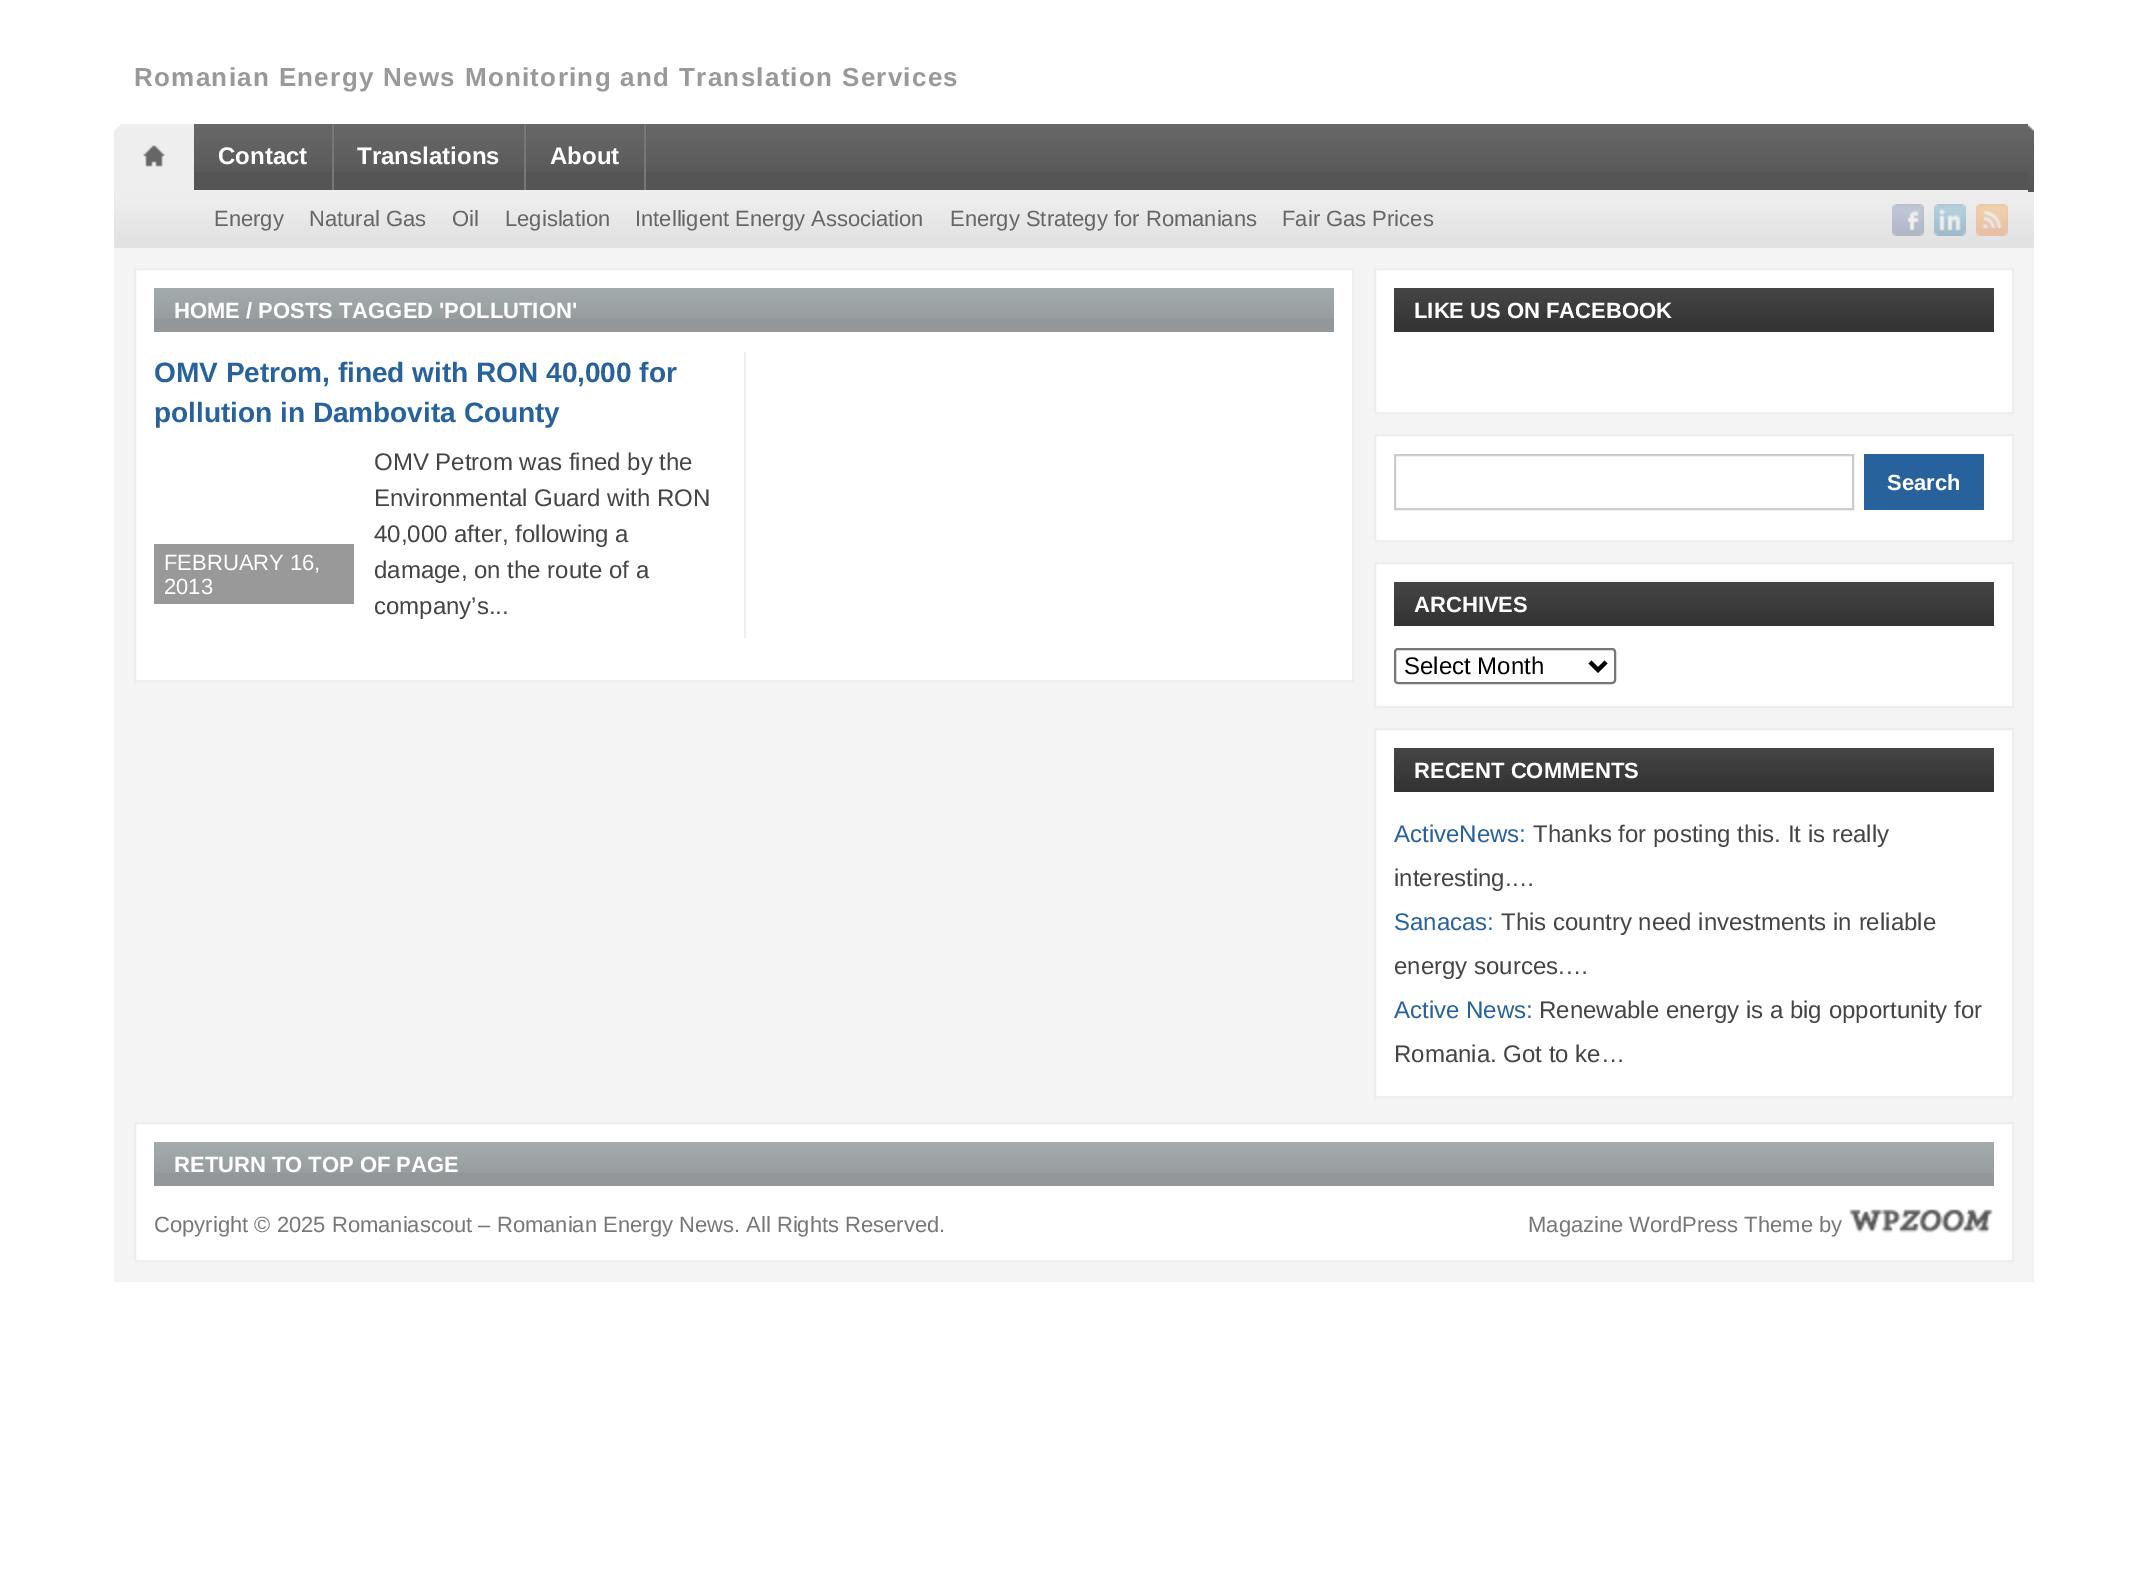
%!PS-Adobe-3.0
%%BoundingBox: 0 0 2148 1576
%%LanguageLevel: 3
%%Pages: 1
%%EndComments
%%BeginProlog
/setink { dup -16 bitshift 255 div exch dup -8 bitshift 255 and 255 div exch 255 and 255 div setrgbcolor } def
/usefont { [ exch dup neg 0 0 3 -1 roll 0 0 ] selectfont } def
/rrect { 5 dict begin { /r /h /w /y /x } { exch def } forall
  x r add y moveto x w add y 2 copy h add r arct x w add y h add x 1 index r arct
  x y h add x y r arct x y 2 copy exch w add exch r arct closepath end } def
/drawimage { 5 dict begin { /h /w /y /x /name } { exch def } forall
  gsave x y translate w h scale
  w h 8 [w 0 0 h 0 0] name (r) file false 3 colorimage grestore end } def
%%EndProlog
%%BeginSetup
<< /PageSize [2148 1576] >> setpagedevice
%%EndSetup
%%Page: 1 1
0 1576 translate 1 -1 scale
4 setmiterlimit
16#FFFFFF setink
0 0 2148 1576 rectfill
/LiberationSans-Bold 26 usefont
16#999999 setink
134 86 moveto 1.3 0 (Romanian Energy News Monitoring and Translation Services) ashow
(img1.raw) 114 126 6 64 drawimage
16#555555 setink
194 172 1834 18 rectfill
(img2.raw) 194 124 1834 48 drawimage
(img3.raw) 120 124 74 66 drawimage
16#777777 setink
332 124 2 66 rectfill
/LiberationSans-Bold 24 usefont
16#FFFFFF setink
218 164 moveto (Contact) show
16#777777 setink
524 124 2 66 rectfill
16#FFFFFF setink
357 164 moveto (Translations) show
16#777777 setink
644 124 2 66 rectfill
16#FFFFFF setink
550 164 moveto (About) show
(img5.raw) 114 190 1920 58 drawimage
(img4.raw) 2028 125 6 67 drawimage
/LiberationSans-Regular 22 usefont
16#666666 setink
[
    [(Energy) 214 226]
    [(Natural Gas) 309 226]
    [(Oil) 452 226]
    [(Legislation) 505 226]
    [(Intelligent Energy Association) 635 226]
    [(Energy Strategy for Romanians) 950 226]
    [(Fair Gas Prices) 1282 226]
] { aload pop moveto show } forall
(img6.raw) 1892 204 32 32 drawimage
(img7.raw) 1934 204 32 32 drawimage
(img8.raw) 1976 204 32 32 drawimage
16#F4F4F4 setink
114 248 1920 1034 rectfill
16#FFFFFF setink
135 269 moveto 1353 269 lineto 1353 681 lineto 135 681 lineto closepath gsave fill grestore
16#EEEEEE setink
2 setlinewidth
stroke
16#939799 setink
154 319 1180 13 rectfill
(img9.raw) 154 288 1180 31 drawimage
/LiberationSans-Bold 22 usefont
16#FFFFFF setink
174 318 moveto (HOME / POSTS TAGGED 'POLLUTION') show
16#EEEEEE setink
744 352 2 286 rectfill
/LiberationSans-Bold 28 usefont
16#27629C setink
154 382 moveto (OMV Petrom, fined with RON 40,000 for) show
154 422 moveto (pollution in Dambovita County) show
16#999999 setink
154 544 200 60 rectfill
/LiberationSans-Regular 22 usefont
16#FFFFFF setink
164 570 moveto (FEBRUARY 16,) show
164 594 moveto (2013) show
/LiberationSans-Regular 24 usefont
16#444444 setink
[
    [(OMV Petrom was fined by the) 374 470]
    [(Environmental Guard with RON) 374 506]
    [(40,000 after, following a) 374 542]
    [(damage, on the route of a) 374 578]
    [(company’s...) 374 614]
] { aload pop moveto show } forall
16#FFFFFF setink
1375 269 moveto 2013 269 lineto 2013 413 lineto 1375 413 lineto closepath gsave fill grestore
16#EEEEEE setink
stroke
(img10.raw) 1394 288 600 44 drawimage
/LiberationSans-Bold 22 usefont
16#FFFFFF setink
1414 318 moveto (LIKE US ON FACEBOOK) show
1375 435 moveto 2013 435 lineto 2013 541 lineto 1375 541 lineto closepath gsave fill grestore
16#EEEEEE setink
stroke
16#CCCCCC setink
1395 455 458 54 rectstroke
16#27629C setink
1864 454 120 56 rectfill
16#FFFFFF setink
1887 490 moveto (Search) show
1375 563 moveto 2013 563 lineto 2013 707 lineto 1375 707 lineto closepath gsave fill grestore
16#EEEEEE setink
stroke
(img10.raw) 1394 582 600 44 drawimage
16#FFFFFF setink
1414 612 moveto (ARCHIVES) show
16#767676 setink
1395 649 220 34 3 rrect stroke
16#000000 setink
4 setlinewidth
1590 662 moveto 1598 670 lineto 1606 662 lineto stroke
/LiberationSans-Regular 24 usefont
1404 674 moveto (Select Month) show
16#FFFFFF setink
1375 729 moveto 2013 729 lineto 2013 1097 lineto 1375 1097 lineto closepath gsave fill grestore
16#EEEEEE setink
2 setlinewidth
stroke
(img10.raw) 1394 748 600 44 drawimage
/LiberationSans-Bold 22 usefont
16#FFFFFF setink
1414 778 moveto (RECENT COMMENTS) show
/LiberationSans-Regular 24 usefont
16#27629C setink
1394 842 moveto (ActiveNews:) show
16#444444 setink
1533 842 moveto (Thanks for posting this. It is really) show
1394 886 moveto (interesting.…) show
16#27629C setink
1394 930 moveto (Sanacas:) show
16#444444 setink
1501 930 moveto (This country need investments in reliable) show
1394 974 moveto (energy sources.…) show
16#27629C setink
1394 1018 moveto (Active News:) show
16#444444 setink
1539 1018 moveto (Renewable energy is a big opportunity for) show
1394 1062 moveto (Romania. Got to ke…) show
16#FFFFFF setink
135 1123 moveto 2013 1123 lineto 2013 1261 lineto 135 1261 lineto closepath gsave fill grestore
16#EEEEEE setink
stroke
16#939799 setink
154 1173 1840 13 rectfill
(img11.raw) 154 1142 1840 31 drawimage
/LiberationSans-Bold 22 usefont
16#FFFFFF setink
174 1172 moveto (RETURN TO TOP OF PAGE) show
/LiberationSans-Regular 22 usefont
16#777777 setink
154 1232 moveto (Copyright © 2025 Romaniascout – Romanian Energy News. All Rights Reserved.) show
1528 1232 moveto (Magazine WordPress Theme by) show
(img12.raw) 1849 1209 144 24 drawimage
showpage
%%EOF
